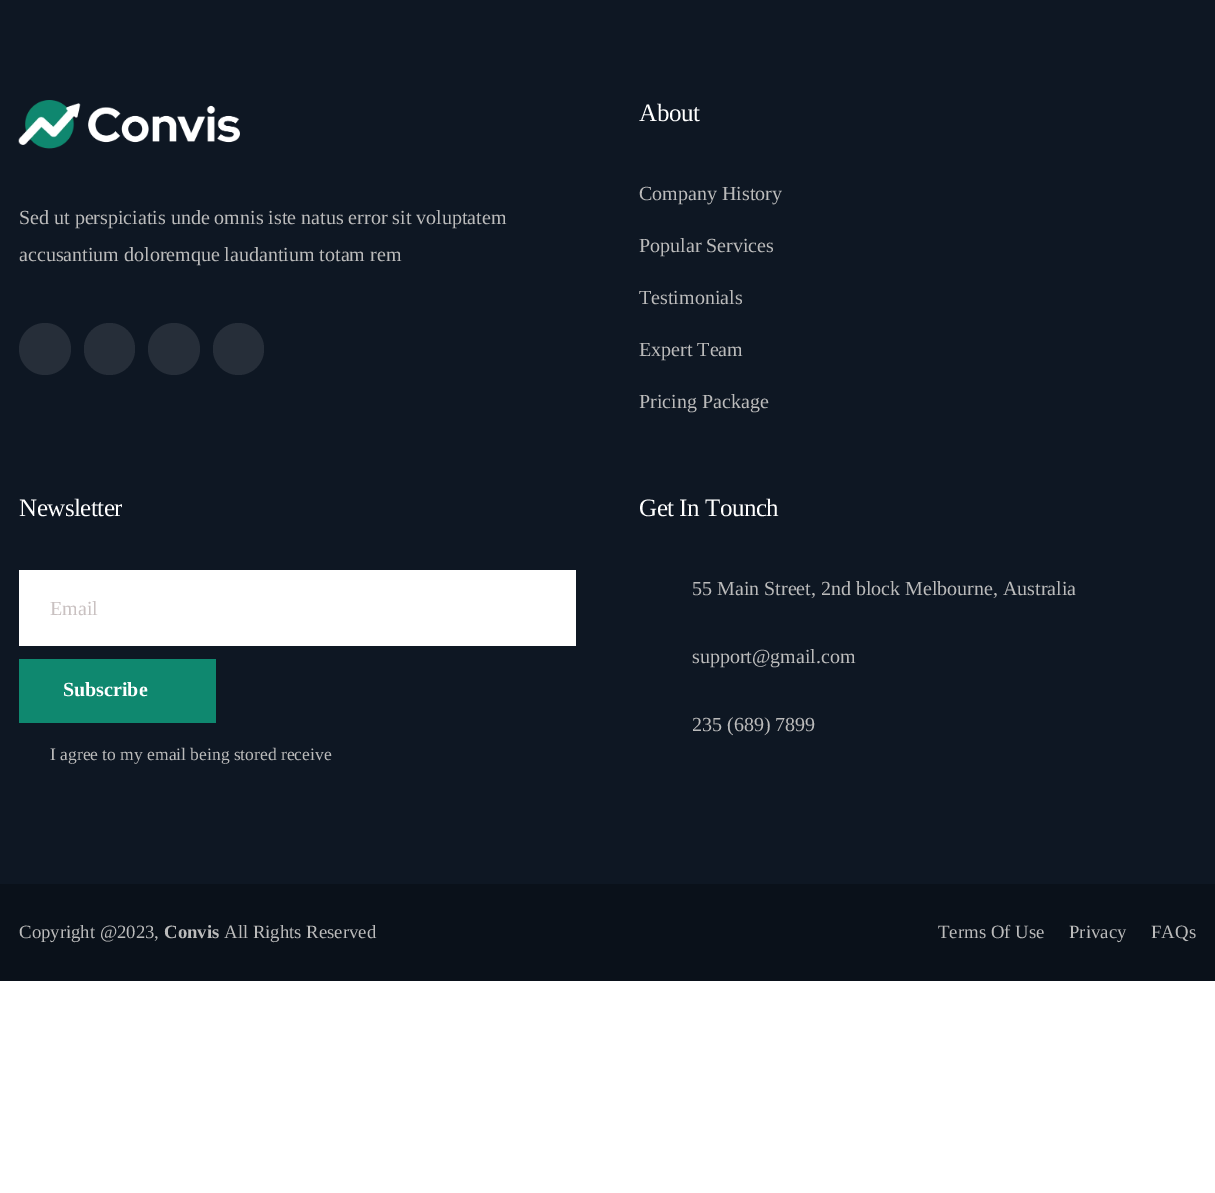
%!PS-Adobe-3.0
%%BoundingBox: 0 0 1215 1193
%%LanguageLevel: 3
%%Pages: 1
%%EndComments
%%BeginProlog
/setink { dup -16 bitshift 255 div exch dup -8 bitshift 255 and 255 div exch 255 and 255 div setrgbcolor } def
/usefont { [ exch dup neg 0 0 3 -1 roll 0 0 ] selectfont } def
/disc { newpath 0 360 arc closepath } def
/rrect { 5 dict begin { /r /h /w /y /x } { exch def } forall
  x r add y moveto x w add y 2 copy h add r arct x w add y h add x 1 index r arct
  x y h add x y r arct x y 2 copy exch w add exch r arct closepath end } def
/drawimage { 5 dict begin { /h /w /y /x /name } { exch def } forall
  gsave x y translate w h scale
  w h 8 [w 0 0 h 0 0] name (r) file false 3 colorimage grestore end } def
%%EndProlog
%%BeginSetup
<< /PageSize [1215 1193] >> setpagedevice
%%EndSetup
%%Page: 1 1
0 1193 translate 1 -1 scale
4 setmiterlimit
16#FFFFFF setink
0 0 1215 1193 rectfill
16#0E1723 setink
0 0 1215 884 rectfill
(img1.raw) 18 100 222 49 drawimage
/LiberationSerif-Regular 20 usefont
16#BBBBBB setink
19 224 moveto (Sed ut perspiciatis unde omnis iste natus error sit voluptatem) show
19 261 moveto (accusantium doloremque laudantium totam rem) show
16#262E39 setink
45 349 26 disc fill
84 323 51 52 25.5 rrect fill
174 349 26 disc fill
213 323 51 52 25.5 rrect fill
/LiberationSerif-Regular 25 usefont
16#FFFFFF setink
639 121 moveto -0.5 0 (About) ashow
/LiberationSerif-Regular 20 usefont
16#BBBBBB setink
[
    [(Company History) 639 200]
    [(Popular Services) 639 252]
    [(Testimonials) 639 304]
    [(Expert Team) 639 356]
    [(Pricing Package) 639 408]
] { aload pop moveto show } forall
/LiberationSerif-Regular 25 usefont
16#FFFFFF setink
19 516 moveto -0.5 0 (Newsletter) ashow
19 570 557 76 rectfill
/LiberationSerif-Regular 20 usefont
16#C9C1C1 setink
50 615 moveto (Email) show
16#0F886F setink
19 659 197 64 rectfill
/LiberationSerif-Bold 20 usefont
16#FFFFFF setink
63 696 moveto (Subscribe) show
/LiberationSerif-Regular 17.5 usefont
16#BBBBBB setink
50 760 moveto (I agree to my email being stored receive) show
/LiberationSerif-Regular 25 usefont
16#FFFFFF setink
639 516 moveto -0.5 0 (Get In Tounch) ashow
/LiberationSerif-Regular 20 usefont
16#BBBBBB setink
[
    [(55 Main Street, 2nd block Melbourne, Australia) 692 595]
    [(support@gmail.com) 692 663]
    [(235 \(689\) 7899) 692 731]
] { aload pop moveto show } forall
16#0A111A setink
0 884 1215 97 rectfill
/LiberationSerif-Regular 18.75 usefont
16#BBBBBB setink
19 938 moveto (Copyright @2023,) show
/LiberationSerif-Bold 18.75 usefont
164 938 moveto (Convis) show
/LiberationSerif-Regular 18.75 usefont
[
    [(All Rights Reserved) 224 938]
    [(Terms Of Use) 938 938]
    [(Privacy) 1069 938]
    [(FAQs) 1151 938]
] { aload pop moveto show } forall
showpage
%%EOF
